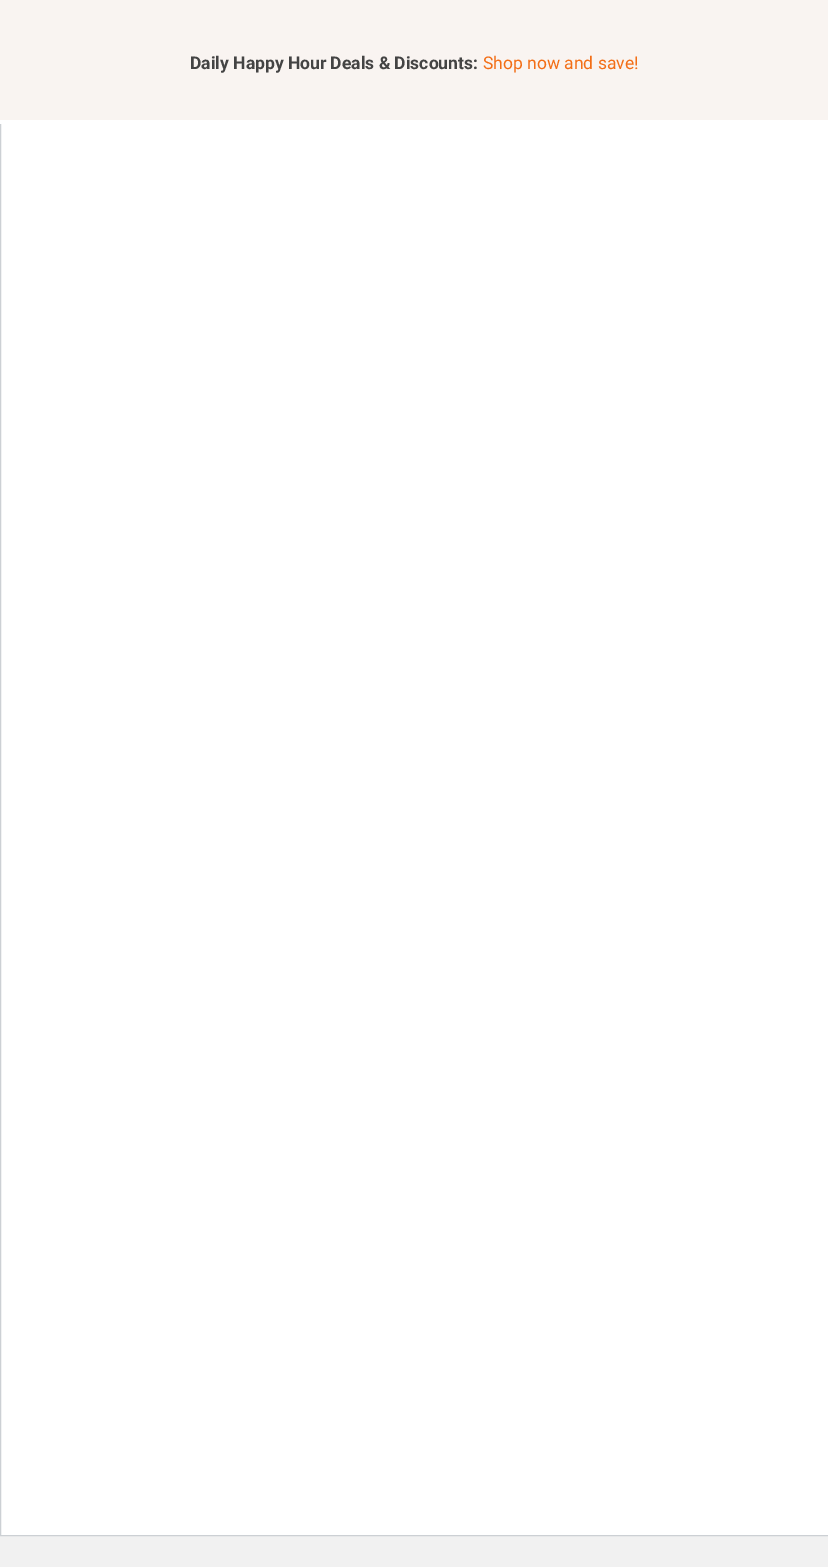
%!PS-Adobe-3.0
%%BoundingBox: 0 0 828 1567
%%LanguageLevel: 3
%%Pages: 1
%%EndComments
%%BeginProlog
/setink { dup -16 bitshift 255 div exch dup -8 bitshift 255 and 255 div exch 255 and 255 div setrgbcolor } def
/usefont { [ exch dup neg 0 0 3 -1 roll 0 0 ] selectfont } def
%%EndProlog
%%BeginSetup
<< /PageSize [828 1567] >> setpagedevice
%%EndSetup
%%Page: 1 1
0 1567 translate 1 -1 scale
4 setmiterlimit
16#F1F1F1 setink
0 0 828 1567 rectfill
16#FFFFFF setink
1 124 827 1411 rectfill
16#CCD0D4 setink
0.5 63.5 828 1472 rectstroke
16#F9F4F1 setink
0 0 828 120 rectfill
/Roboto-Bold 17.5 usefont
16#444444 setink
190 69 moveto (Daily Happy Hour Deals & Discounts:) show
/Roboto-Regular 17.5 usefont
16#F36E16 setink
483 69 moveto (Shop now and save!) show
16#FFFFFF setink
0 120 828 4 rectfill
showpage
%%EOF
